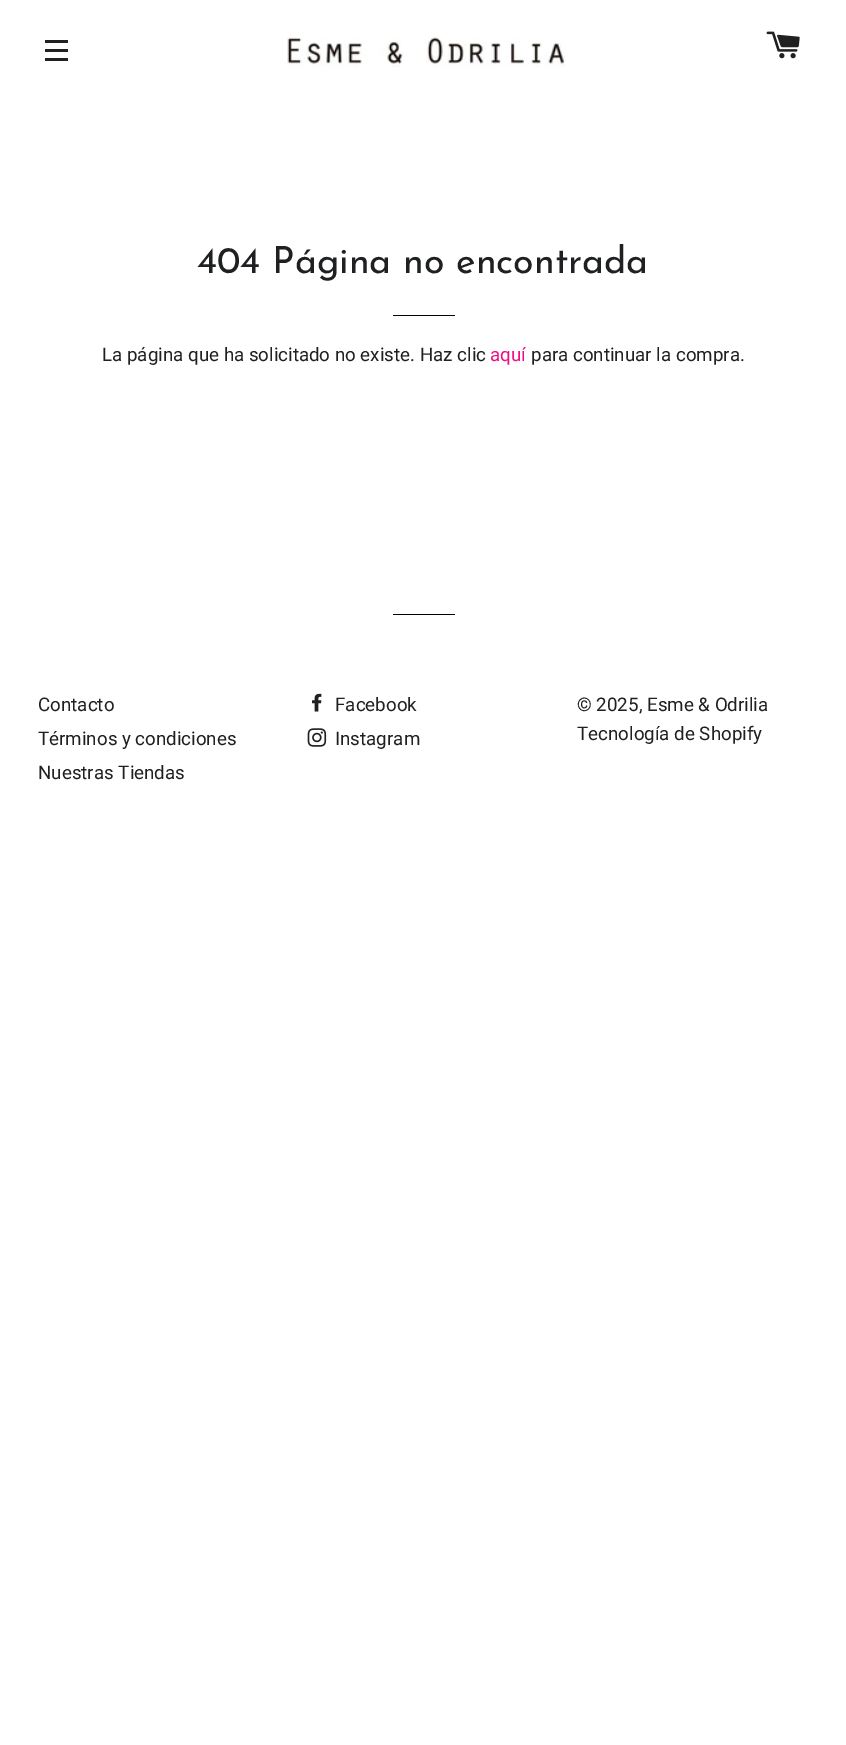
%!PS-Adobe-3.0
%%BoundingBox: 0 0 846 1745
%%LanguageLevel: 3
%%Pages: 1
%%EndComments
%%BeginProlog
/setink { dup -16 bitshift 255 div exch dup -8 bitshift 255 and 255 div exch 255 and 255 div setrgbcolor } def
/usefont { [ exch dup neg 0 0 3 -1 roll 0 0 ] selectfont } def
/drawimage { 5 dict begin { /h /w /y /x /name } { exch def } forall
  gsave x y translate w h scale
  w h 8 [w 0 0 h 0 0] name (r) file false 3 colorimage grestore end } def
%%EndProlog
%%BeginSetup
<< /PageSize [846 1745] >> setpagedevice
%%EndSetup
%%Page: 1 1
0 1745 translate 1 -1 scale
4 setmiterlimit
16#FFFFFF setink
0 0 846 1745 rectfill
[
    [45 40 23 3 16#212121]
    [45 49 23 3 16#212121]
    [45 58 23 3 16#212121]
] { aload pop setink rectfill } forall
(img1.raw) 287 37 279 31 drawimage
(img2.raw) 766 31 34 28 drawimage
/JosefinSans-Regular 37.5 usefont
16#1F2021 setink
197 273 moveto (404 Página no encontrada) show
16#070101 setink
393 315 62 1 rectfill
/Roboto-Regular 18.75 usefont
16#1F2021 setink
102 361 moveto (La página que ha solicitado no existe. Haz clic) show
16#F00C82 setink
490 361 moveto (aquí) show
16#1F2021 setink
531 361 moveto (para continuar la compra.) show
16#070101 setink
393 614 62 1 rectfill
16#1F2021 setink
[
    [(Contacto) 38 711]
    [(Términos y condiciones) 38 745]
    [(Nuestras Tiendas) 38 779]
] { aload pop moveto show } forall
(img3.raw) 312 693 10 19 drawimage
335 711 moveto (Facebook) show
(img4.raw) 307 728 20 19 drawimage
[
    [(Instagram) 335 745]
    [(© 2025, Esme & Odrilia) 577 711]
    [(Tecnología de Shopify) 577 740]
] { aload pop moveto show } forall
showpage
%%EOF
